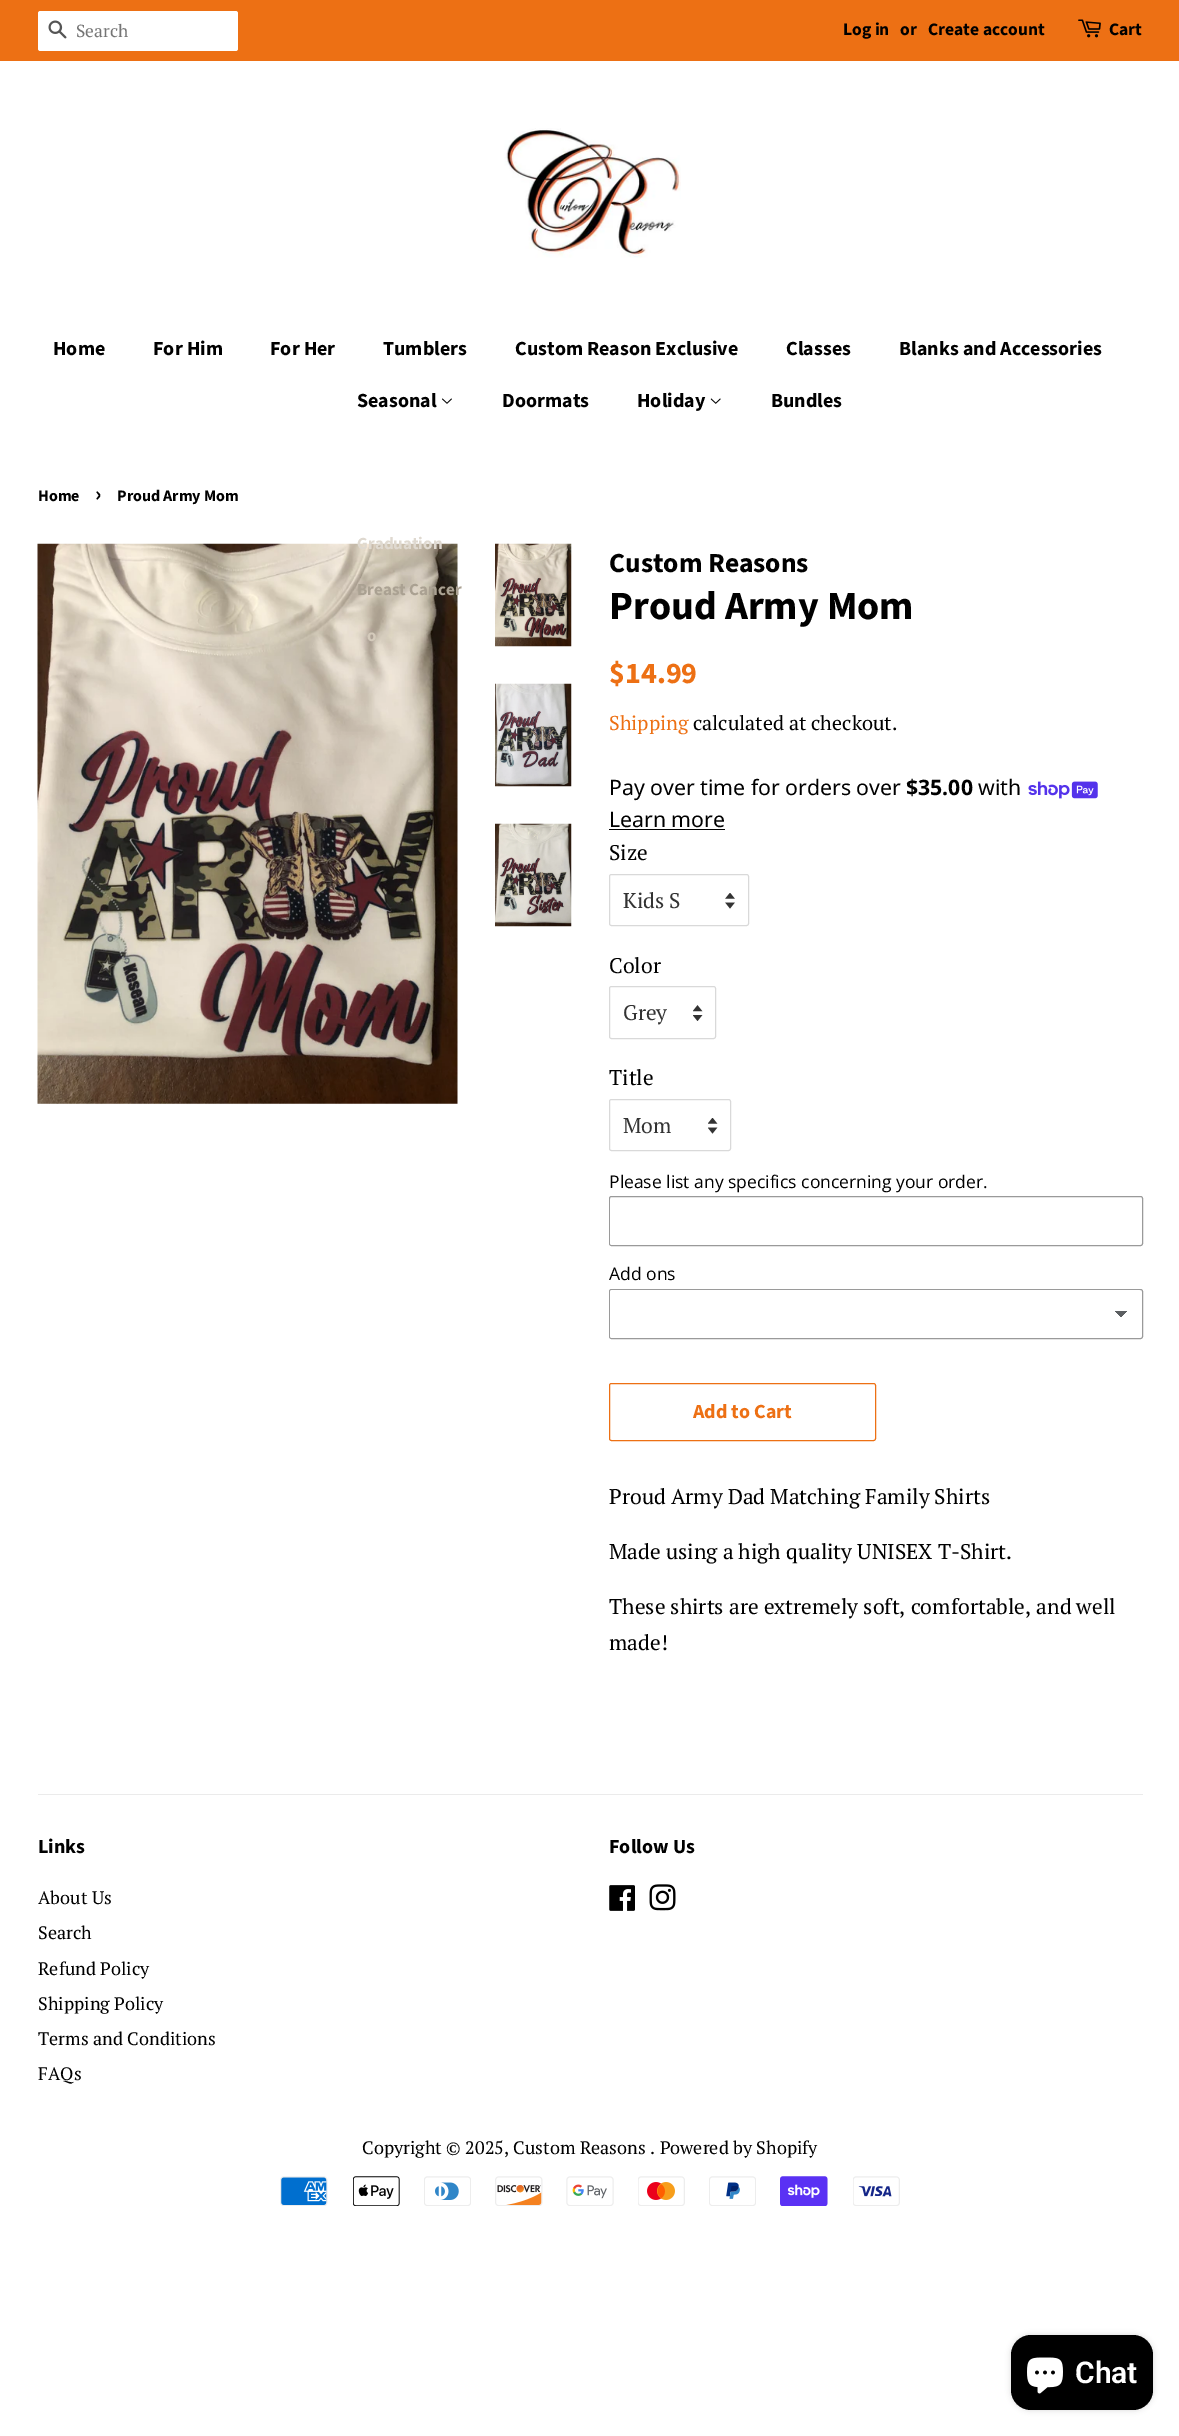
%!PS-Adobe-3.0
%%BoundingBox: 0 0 1179 2436
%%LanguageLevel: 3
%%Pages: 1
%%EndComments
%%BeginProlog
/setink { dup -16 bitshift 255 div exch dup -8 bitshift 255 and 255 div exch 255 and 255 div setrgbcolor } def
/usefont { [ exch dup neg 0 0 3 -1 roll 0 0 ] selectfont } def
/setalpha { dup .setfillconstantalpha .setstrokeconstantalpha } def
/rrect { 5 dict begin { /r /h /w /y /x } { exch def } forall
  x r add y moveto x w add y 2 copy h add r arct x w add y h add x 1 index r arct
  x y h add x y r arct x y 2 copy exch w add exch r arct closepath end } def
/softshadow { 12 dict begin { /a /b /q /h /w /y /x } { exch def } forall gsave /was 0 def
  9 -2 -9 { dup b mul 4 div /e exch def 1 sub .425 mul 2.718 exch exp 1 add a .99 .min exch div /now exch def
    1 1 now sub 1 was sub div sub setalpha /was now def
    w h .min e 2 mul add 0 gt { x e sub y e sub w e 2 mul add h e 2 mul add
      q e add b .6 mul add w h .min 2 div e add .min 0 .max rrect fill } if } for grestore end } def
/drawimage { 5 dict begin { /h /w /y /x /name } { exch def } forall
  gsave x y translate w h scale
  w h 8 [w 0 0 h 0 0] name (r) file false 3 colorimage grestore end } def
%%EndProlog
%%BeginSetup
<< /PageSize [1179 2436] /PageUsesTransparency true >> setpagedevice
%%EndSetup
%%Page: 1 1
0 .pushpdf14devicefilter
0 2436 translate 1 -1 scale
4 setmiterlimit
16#FFFFFF setink
0 0 1179 2436 rectfill
16#ED7014 setink
0 0 1179 61 rectfill
16#FFFFFF setink
38 11 200 40 2.5 rrect fill
(img1.raw) 48 20 19 19 drawimage
/PTSerif-Regular 17.5 usefont
16#757575 setink
76 37 moveto (Search) show
/SourceSansPro-Bold 17.5 usefont
16#000000 setink
[
    [(Log in) 843 35]
    [(or) 900 35]
    [(Create account) 928 35]
] { aload pop moveto show } forall
(img2.raw) 1078 19 23 19 drawimage
1109 35 moveto (Cart) show
(img3.raw) 504 128 177 130 drawimage
/SourceSansPro-Bold 20 usefont
[
    [(Home) 53 355]
    [(For Him) 153 355]
    [(For Her) 270 355]
    [(Tumblers) 383 355]
    [(Custom Reason Exclusive) 515 355]
    [(Classes) 786 355]
    [(Blanks and Accessories) 899 355]
    [(Seasonal) 357 407]
] { aload pop moveto show } forall
(img4.raw) 442 398 10 6 drawimage
(img6.raw) 37 543 421 561 drawimage
/SourceSansPro-Bold 17 usefont
16#DFD9D0 setink
357 549 moveto (Graduation) show
16#AAA192 setink
357 595 moveto (Breast Cancer) show
16#D4CABB setink
367 641 moveto (o) show
/SourceSansPro-Bold 20 usefont
16#000000 setink
502 407 moveto (Doormats) show
637 407 moveto (Holiday) show
(img5.raw) 710 398 11 6 drawimage
771 407 moveto (Bundles) show
/SourceSansPro-Bold 16 usefont
38 501 moveto (Home) show
/SourceSansPro-Bold 22 usefont
95 501 moveto (›) show
/SourceSansPro-Bold 16 usefont
117 501 moveto (Proud Army Mom) show
(img7.raw) 495 543 77 104 drawimage
(img8.raw) 495 683 77 104 drawimage
(img9.raw) 495 823 77 104 drawimage
/SourceSansPro-Bold 27.5 usefont
609 572 moveto (Custom Reasons) show
/SourceSansPro-Bold 40 usefont
609 619 moveto (Proud Army Mom) show
/SourceSansPro-Bold 30 usefont
16#ED7014 setink
609 683 moveto ($14.99) show
/PTSerif-Regular 20 usefont
609 730 moveto (Shipping) show
16#000000 setink
693 730 moveto (calculated at checkout.) show
/NotoSans-Regular 21.25 usefont
609 795 moveto (Pay over time for orders over) show
/NotoSans-Bold 21.25 usefont
906 795 moveto ($35.00) show
/NotoSans-Regular 21.25 usefont
978 795 moveto (with) show
(img10.raw) 1028 781 70 18 drawimage
609 827 moveto (Learn more) show
609 829 116 1 rectfill
/PTSerif-Regular 21.25 usefont
609 860 moveto (Size) show
(img11.raw) 725 893 10 16 drawimage
16#D9D9D9 setink
609.5 874.5 139 51 2 rrect stroke
16#333333 setink
623 908 moveto (Kids S) show
16#000000 setink
609 973 moveto (Color) show
(img12.raw) 693 1005 10 16 drawimage
16#D9D9D9 setink
609.5 986.5 106 52 2 rrect stroke
16#333333 setink
623 1020 moveto (Grey) show
16#000000 setink
609 1085 moveto (Title) show
(img13.raw) 708 1118 10 16 drawimage
16#D9D9D9 setink
609.5 1099.5 121 51 2 rrect stroke
16#333333 setink
623 1133 moveto (Mom) show
/OpenSans-Regular 17.5 usefont
16#000000 setink
609 1188 moveto (Please list any specifics concerning your order.) show
16#9A9A9A setink
609.5 1196.5 533 49 2 rrect stroke
16#FFFFFF setink
610 1198 531 47 2.5 rrect fill
16#000000 setink
609 1280 moveto (Add ons) show
16#9A9A9A setink
609.5 1289.5 533 49 2 rrect stroke
16#FFFFFF setink
610 1290 531 48 2.5 rrect fill
gsave 1121 1311 moveto 1128 1311 lineto 1128 1317 lineto 1121 1317 lineto closepath clip newpath
<< /ShadingType 2 /ColorSpace /DeviceRGB /Coords [1121 1311 1128 1317] /Extend [true true] /Function << /FunctionType 3 /Domain [0 1] /Functions [<< /FunctionType 2 /Domain [0 1] /C0 [0.361 0.373 0.384] /C1 [0.361 0.373 0.384] /N 1 >> << /FunctionType 2 /Domain [0 1] /C0 [1 1 1] /C1 [1 1 1] /N 1 >>] /Bounds [0.5] /Encode [0 1 0 1] >> >> shfill grestore
gsave 1115 1311 moveto 1121 1311 lineto 1121 1318 lineto 1115 1318 lineto closepath clip newpath
<< /ShadingType 2 /ColorSpace /DeviceRGB /Coords [1115 1317 1121 1311] /Extend [true true] /Function << /FunctionType 3 /Domain [0 1] /Functions [<< /FunctionType 2 /Domain [0 1] /C0 [1 1 1] /C1 [1 1 1] /N 1 >> << /FunctionType 2 /Domain [0 1] /C0 [0.361 0.373 0.384] /C1 [0.361 0.373 0.384] /N 1 >>] /Bounds [0.5] /Encode [0 1 0 1] >> >> shfill grestore
16#ED7014 setink
609.5 1383.5 266 57 2 rrect stroke
/SourceSansPro-Bold 20 usefont
693 1418 moveto (Add to Cart) show
/PTSerif-Regular 21.25 usefont
16#000000 setink
[
    [(Proud Army Dad Matching Family Shirts) 609 1504]
    [(Made using a high quality UNISEX T-Shirt.) 609 1559]
    [(These shirts are extremely soft, comfortable, and well) 609 1614]
    [(made!) 609 1650]
] { aload pop moveto show } forall
16#EBEBEB setink
38 1794 1105 1 rectfill
/SourceSansPro-Bold 20 usefont
16#000000 setink
38 1853 moveto (Links) show
/PTSerif-Regular 18.05 usefont
[
    [(About Us) 38 1904]
    [(Search) 38 1939]
    [(Refund Policy) 38 1975]
    [(Shipping Policy) 38 2010]
    [(Terms and Conditions) 38 2045]
    [(FAQs) 38 2080]
] { aload pop moveto show } forall
/SourceSansPro-Bold 20 usefont
609 1853 moveto (Follow Us) show
(img14.raw) 609 1885 26 26 drawimage
(img15.raw) 649 1884 27 27 drawimage
/PTSerif-Regular 18.05 usefont
362 2154 moveto (Copyright © 2025, Custom Reasons . Powered by Shopify) show
(img16.raw) 280 2176 48 30 drawimage
(img17.raw) 353 2176 47 30 drawimage
(img18.raw) 424 2176 47 30 drawimage
(img19.raw) 495 2176 48 30 drawimage
(img20.raw) 566 2176 48 30 drawimage
(img21.raw) 638 2176 47 30 drawimage
(img22.raw) 709 2176 47 30 drawimage
(img23.raw) 780 2176 48 30 drawimage
(img24.raw) 853 2176 47 30 drawimage
1011 2335 142 75 20 3 0.15 softshadow
1011 2335 142 75 20 rrect fill
(img25.raw) 1027 2357 36 37 drawimage
/Roboto-SemiBold 30 usefont
16#FFFFFF setink
1075 2383 moveto (Chat) show
.poppdf14devicefilter showpage
%%EOF
